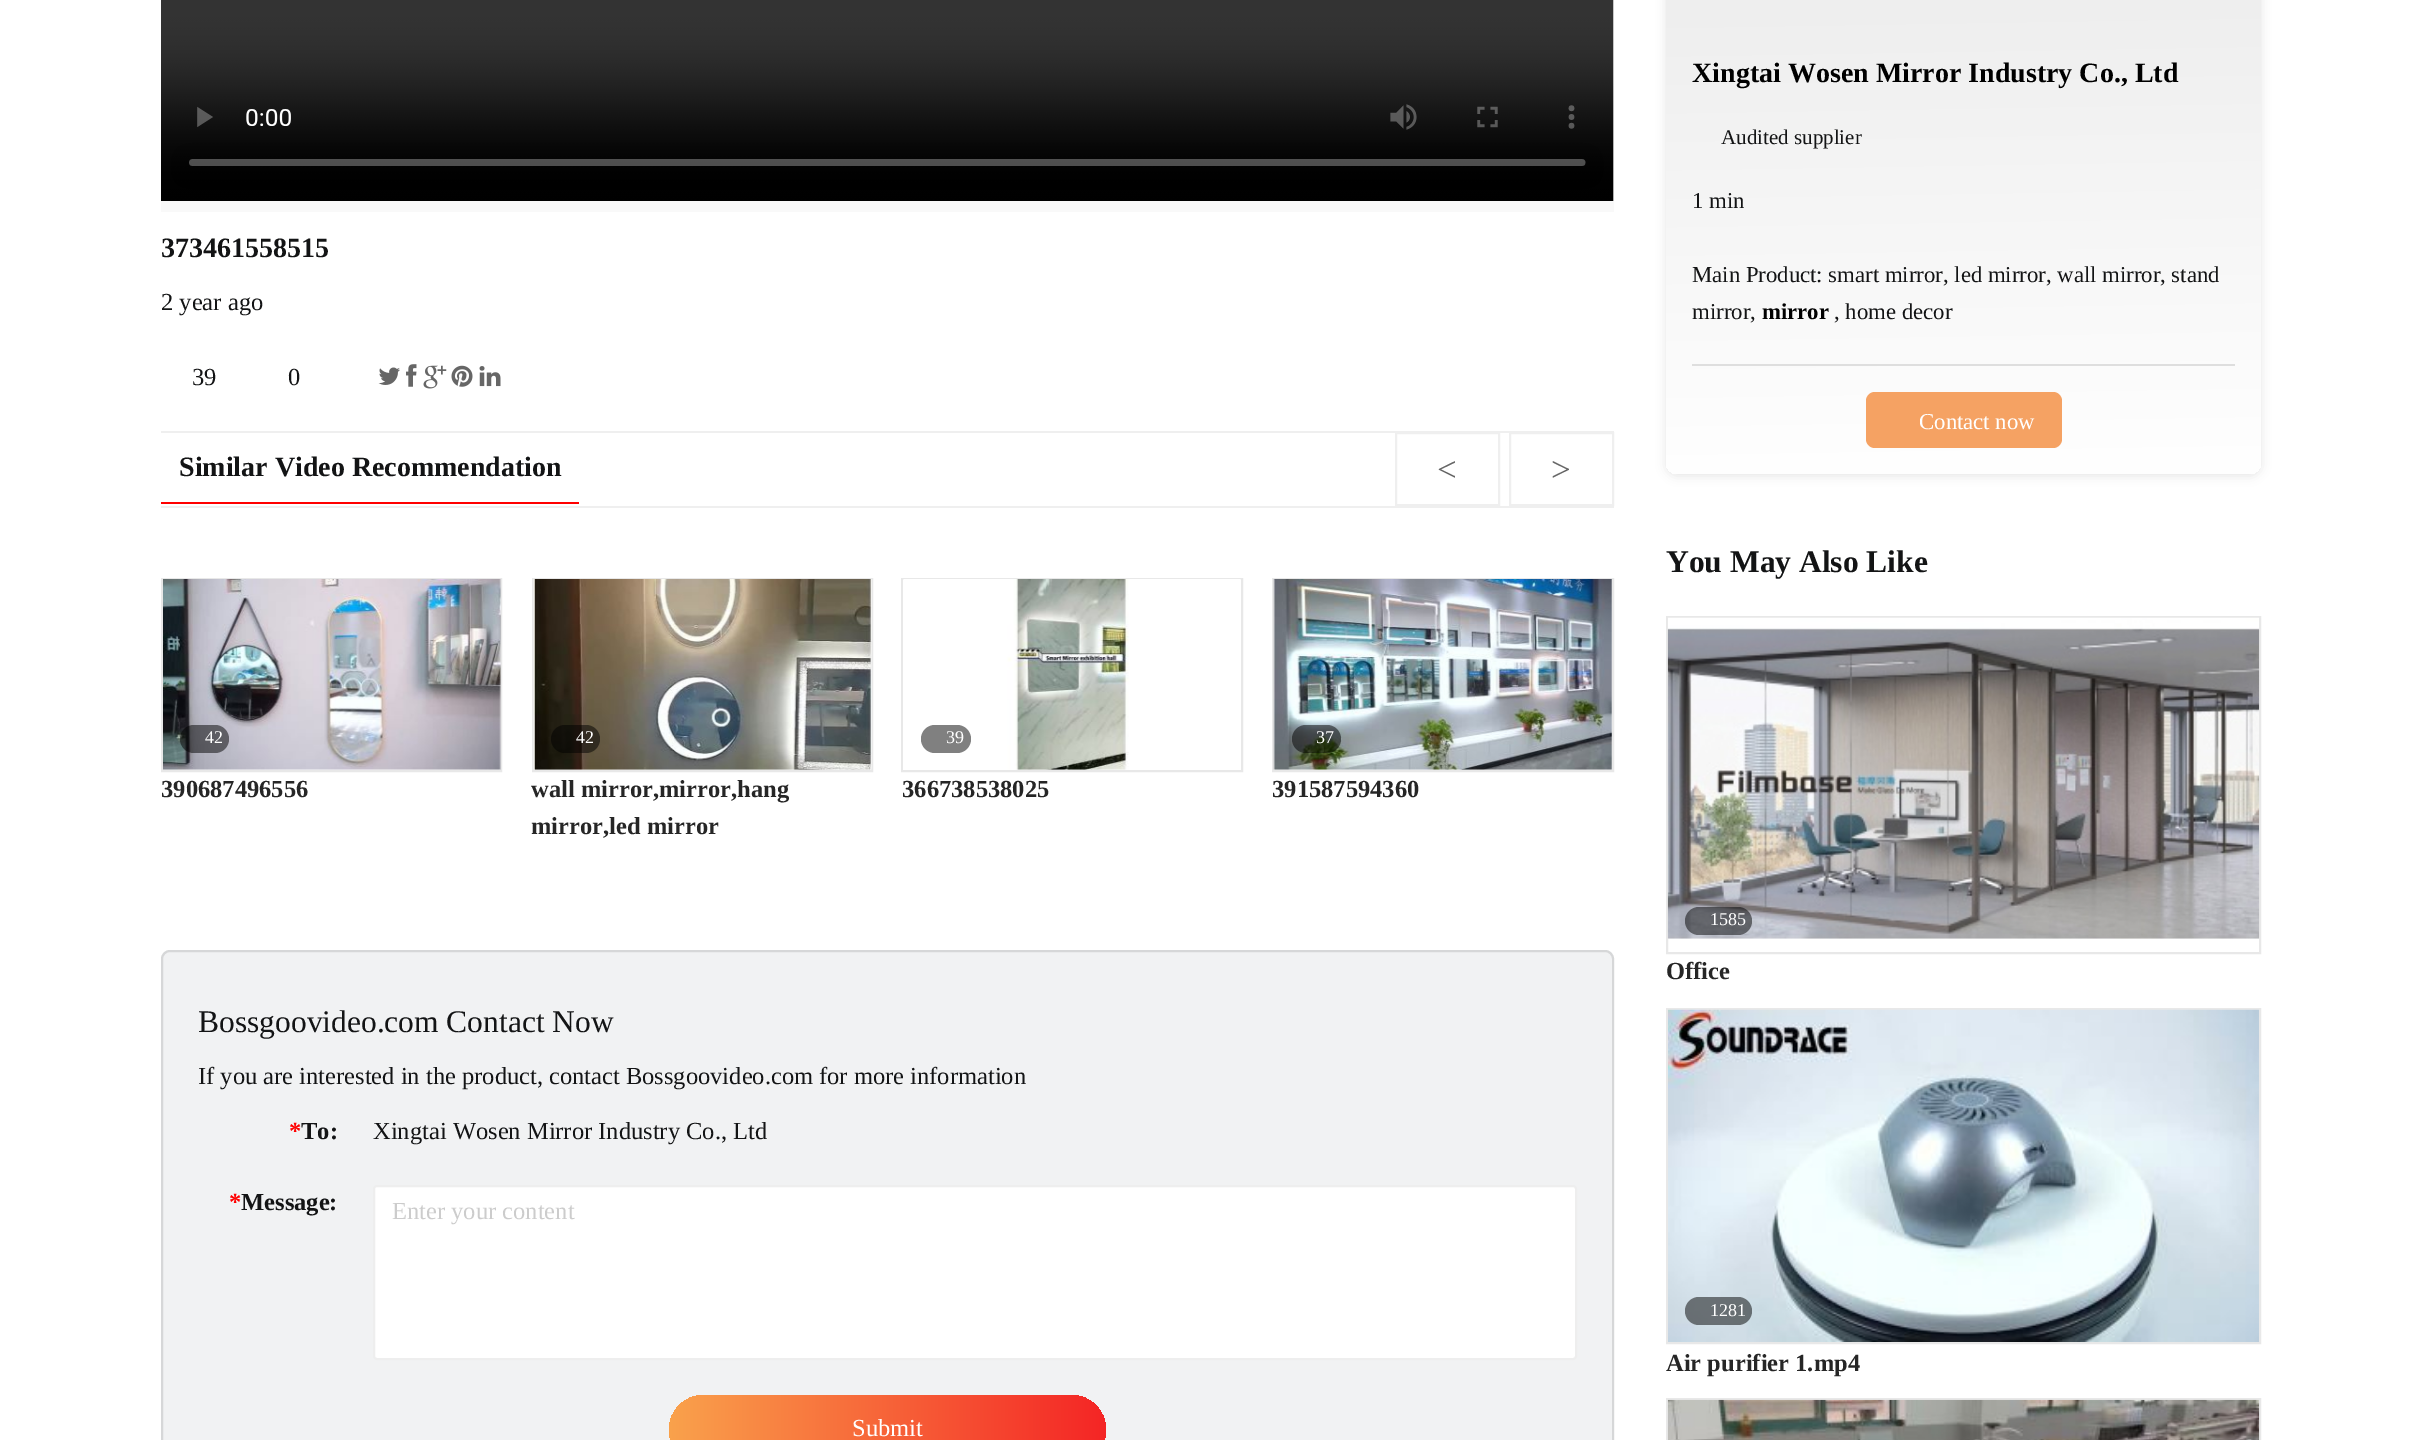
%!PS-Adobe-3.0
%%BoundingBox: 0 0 2421 1440
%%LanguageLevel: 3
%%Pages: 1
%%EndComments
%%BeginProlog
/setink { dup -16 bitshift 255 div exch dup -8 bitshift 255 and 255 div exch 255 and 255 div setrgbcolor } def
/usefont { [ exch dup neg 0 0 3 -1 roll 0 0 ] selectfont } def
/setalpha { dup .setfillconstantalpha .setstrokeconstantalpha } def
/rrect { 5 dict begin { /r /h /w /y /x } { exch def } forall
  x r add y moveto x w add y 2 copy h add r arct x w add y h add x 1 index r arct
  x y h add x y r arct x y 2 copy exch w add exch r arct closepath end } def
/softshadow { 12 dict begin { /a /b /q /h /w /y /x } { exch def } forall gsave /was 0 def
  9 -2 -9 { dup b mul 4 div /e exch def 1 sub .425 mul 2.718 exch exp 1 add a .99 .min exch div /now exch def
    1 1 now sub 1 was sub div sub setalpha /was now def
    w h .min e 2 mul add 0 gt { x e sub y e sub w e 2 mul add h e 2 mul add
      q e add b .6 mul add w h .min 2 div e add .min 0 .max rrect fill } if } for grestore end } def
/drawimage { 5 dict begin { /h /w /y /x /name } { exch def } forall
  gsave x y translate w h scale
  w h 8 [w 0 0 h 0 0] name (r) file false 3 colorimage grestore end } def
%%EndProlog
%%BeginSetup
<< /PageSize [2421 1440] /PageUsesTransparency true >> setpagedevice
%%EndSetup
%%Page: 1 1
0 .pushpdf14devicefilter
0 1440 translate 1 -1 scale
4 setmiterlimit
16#FFFFFF setink
0 0 2421 1440 rectfill
16#F9F9F9 setink
161 0 1453 212 rectfill
(img1.raw) 161 0 1453 201 drawimage
/LiberationSerif-Bold 28 usefont
16#131415 setink
161 257 moveto (373461558515) show
/LiberationSerif-Regular 24.5 usefont
161 310 moveto (2 year ago) show
16#EFEFEF setink
161 431 1453 2 rectfill
16#131415 setink
192 385 moveto (39) show
288 385 moveto (0) show
(img2.raw) 378 367 22 18 drawimage
(img3.raw) 406 364 11 23 drawimage
(img4.raw) 423 365 24 24 drawimage
(img5.raw) 451 365 22 22 drawimage
(img6.raw) 479 366 22 21 drawimage
16#EFEFEF setink
161 506 1453 2 rectfill
16#FF0000 setink
161 502 418 2 rectfill
/LiberationSerif-Bold 28 usefont
16#131415 setink
179 476 moveto (Similar Video Recommendation) show
16#EFEFEF setink
2 setlinewidth
1396 433 103 72 rectstroke
/LiberationSerif-Regular 35 usefont
16#666666 setink
1437 481 moveto (<) show
16#EFEFEF setink
1510 433 103 72 rectstroke
16#666666 setink
1551 481 moveto (>) show
16#E8E8E8 setink
162 579 339 192 rectstroke
(img7.raw) 163 579 338 191 drawimage
0.5 setalpha
16#000000 setink
180 725 49 28 14 rrect fill
/LiberationSerif-Regular 18 usefont
1 setalpha
16#FFFFFF setink
205 743 moveto (42) show
/LiberationSerif-Bold 24.5 usefont
16#262626 setink
161 797 moveto (390687496556) show
16#E8E8E8 setink
533 579 339 192 rectstroke
(img8.raw) 533 579 339 191 drawimage
0.5 setalpha
16#000000 setink
551 725 49 28 14 rrect fill
/LiberationSerif-Regular 18 usefont
1 setalpha
16#FFFFFF setink
576 743 moveto (42) show
/LiberationSerif-Bold 24.5 usefont
16#262626 setink
531 797 moveto (wall mirror,mirror,hang) show
531 834 moveto (mirror,led mirror) show
16#E8E8E8 setink
902 579 340 192 rectstroke
(img9.raw) 903 579 338 191 drawimage
16#808080 setink
921 725 50 28 14 rrect fill
/LiberationSerif-Regular 18 usefont
16#FFFFFF setink
946 743 moveto (39) show
/LiberationSerif-Bold 24.5 usefont
16#262626 setink
902 797 moveto (366738538025) show
16#E8E8E8 setink
1273 579 340 192 rectstroke
(img10.raw) 1273 579 339 191 drawimage
0.5 setalpha
16#000000 setink
1292 725 49 28 14 rrect fill
/LiberationSerif-Regular 18 usefont
1 setalpha
16#FFFFFF setink
1316 743 moveto (37) show
/LiberationSerif-Bold 24.5 usefont
16#262626 setink
1272 797 moveto (391587594360) show
16#F1F2F3 setink
161 950 1453 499 9 rrect fill
0.2 setalpha
16#6C6C6C setink
162 951 1451 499 8 rrect stroke
/LiberationSerif-Regular 31.5 usefont
1 setalpha
16#131415 setink
198 1032 moveto (Bossgoovideo.com Contact Now) show
/LiberationSerif-Regular 24.5 usefont
198 1084 moveto (If you are interested in the product, contact Bossgoovideo.com for more information) show
/LiberationSerif-Bold 24.5 usefont
16#FF0000 setink
289 1139 moveto (*) show
16#131415 setink
301 1139 moveto (To:) show
/LiberationSerif-Regular 24.5 usefont
373 1139 moveto (Xingtai Wosen Mirror Industry Co., Ltd) show
/LiberationSerif-Bold 24.5 usefont
16#FF0000 setink
229 1210 moveto (*) show
16#131415 setink
241 1210 moveto (Message:) show
16#FFFFFF setink
374 1186 1202 173 3 rrect gsave fill grestore
16#EEEEEE setink
stroke
/LiberationSerif-Regular 24.5 usefont
16#CCCCCC setink
392 1219 moveto (Enter your content) show
gsave 669 1395 437 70 35 rrect clip newpath
<< /ShadingType 2 /ColorSpace /DeviceRGB /Coords [669 1430 1106 1430] /Extend [true true] /Function << /FunctionType 2 /Domain [0 1] /C0 [0.98 0.635 0.298] /C1 [0.957 0.145 0.145] /N 1 >> >> shfill grestore
16#FFFFFF setink
852 1436 moveto (Submit) show
16#000000 setink
1666 -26 595 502 11 5 0.1 softshadow
gsave 1666 -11 595 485 11 rrect clip newpath
<< /ShadingType 2 /ColorSpace /DeviceRGB /Coords [1959 -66 1968 479] /Extend [true true] /Function << /FunctionType 2 /Domain [0 1] /C0 [0.925 0.925 0.925] /C1 [1 1 1] /N 1 >> >> shfill grestore
/LiberationSerif-Bold 28 usefont
1692 82 moveto (Xingtai Wosen Mirror Industry Co., Ltd) show
/LiberationSerif-Regular 21 usefont
16#131415 setink
1721 144 moveto (Audited supplier) show
/LiberationSerif-Regular 22.75 usefont
[
    [(1 min) 1692 208]
    [(Main Product: smart mirror, led mirror, wall mirror, stand) 1692 282]
    [(mirror,) 1692 319]
] { aload pop moveto show } forall
/LiberationSerif-Bold 22.75 usefont
16#000000 setink
1762 319 moveto (mirror) show
/LiberationSerif-Regular 22.75 usefont
16#131415 setink
1834 319 moveto (, home decor) show
16#DEDEDE setink
1692 364 543 2 rectfill
16#F5A263 setink
1866 392 196 56 9 rrect fill
16#FFFFFF setink
1919 429 moveto (Contact now) show
/LiberationSerif-Bold 31.5 usefont
16#131415 setink
1666 572 moveto (You May Also Like) show
16#E8E8E8 setink
1667 617 593 336 rectstroke
(img11.raw) 1667 617 593 322 drawimage
0.5 setalpha
16#000000 setink
1685 907 67 28 14 rrect fill
/LiberationSerif-Regular 18 usefont
1 setalpha
16#FFFFFF setink
1710 925 moveto (1585) show
/LiberationSerif-Bold 24.5 usefont
16#262626 setink
1666 979 moveto (Office) show
16#E8E8E8 setink
1667 1009 593 334 rectstroke
(img12.raw) 1668 1009 591 333 drawimage
0.5 setalpha
16#000000 setink
1685 1297 67 28 14 rrect fill
/LiberationSerif-Regular 18 usefont
1 setalpha
16#FFFFFF setink
1710 1316 moveto (1281) show
/LiberationSerif-Bold 24.5 usefont
16#262626 setink
1666 1371 moveto (Air purifier 1.mp4) show
16#E8E8E8 setink
1667 1399 593 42 rectstroke
(img13.raw) 1667 1399 593 41 drawimage
.poppdf14devicefilter showpage
%%EOF
